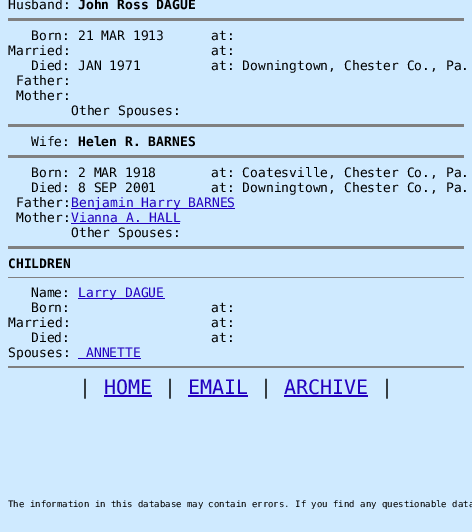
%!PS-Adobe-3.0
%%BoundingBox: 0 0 472 532
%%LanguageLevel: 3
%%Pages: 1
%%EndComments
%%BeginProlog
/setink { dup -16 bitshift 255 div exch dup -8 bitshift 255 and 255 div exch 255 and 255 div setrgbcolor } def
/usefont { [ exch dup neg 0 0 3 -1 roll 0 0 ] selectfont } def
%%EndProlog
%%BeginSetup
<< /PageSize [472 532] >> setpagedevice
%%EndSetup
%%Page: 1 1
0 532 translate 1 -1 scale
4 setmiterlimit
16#CFEAFF setink
0 0 472 532 rectfill
/DejaVuSansMono-Regular 13 usefont
16#000000 setink
8 9 moveto (Husband:) show
/DejaVuSansMono-Bold 13 usefont
78 9 moveto (John Ross DAGUE) show
16#808080 setink
8 18 456 3 rectfill
/DejaVuSansMono-Regular 13 usefont
16#000000 setink
[
    [(Born: 21 MAR 1913      at:) 31 40]
    [(Married:                  at:) 8 55]
    [(Died: JAN 1971         at: Downingtown, Chester Co., Pa.) 31 70]
    [(Father:) 16 85]
    [(Mother:) 16 100]
    [(Other Spouses:) 71 115]
] { aload pop moveto show } forall
16#808080 setink
8 124 456 3 rectfill
16#000000 setink
31 146 moveto (Wife:) show
/DejaVuSansMono-Bold 13 usefont
78 146 moveto (Helen R. BARNES) show
16#808080 setink
8 155 456 3 rectfill
/DejaVuSansMono-Regular 13 usefont
16#000000 setink
[
    [(Born: 2 MAR 1918       at: Coatesville, Chester Co., Pa.) 31 177]
    [(Died: 8 SEP 2001       at: Downingtown, Chester Co., Pa.) 31 192]
    [(Father:) 16 207]
] { aload pop moveto show } forall
16#2200C0 setink
71 208 164 1 rectfill
71 207 moveto (Benjamin Harry BARNES) show
16#000000 setink
16 222 moveto (Mother:) show
16#2200C0 setink
71 222 moveto (Vianna A. HALL) show
71 223 109 1 rectfill
16#000000 setink
71 237 moveto (Other Spouses:) show
16#808080 setink
8 246 456 3 rectfill
/DejaVuSansMono-Bold 13 usefont
16#000000 setink
8 268 moveto (CHILDREN) show
16#808080 setink
8 277 456 1 rectfill
/DejaVuSansMono-Regular 13 usefont
16#000000 setink
31 297 moveto (Name:) show
16#2200C0 setink
78 298 87 1 rectfill
78 297 moveto (Larry DAGUE) show
16#000000 setink
[
    [(Born:                  at:) 31 312]
    [(Married:                  at:) 8 327]
    [(Died:                  at:) 31 342]
    [(Spouses:) 8 357]
] { aload pop moveto show } forall
16#2200C0 setink
86 357 moveto (ANNETTE) show
78 358 63 1 rectfill
16#808080 setink
8 366 456 2 rectfill
/DejaVuSansMono-Regular 20 usefont
16#000000 setink
79 394 moveto (|) show
16#2200C0 setink
104 394 moveto (HOME) show
104 395 48 2 rectfill
16#000000 setink
164 394 moveto (|) show
16#2200C0 setink
188 394 moveto (EMAIL) show
188 395 60 2 rectfill
16#000000 setink
260 394 moveto (|) show
16#2200C0 setink
284 394 moveto (ARCHIVE) show
284 395 84 2 rectfill
16#000000 setink
381 394 moveto (|) show
/DejaVuSansMono-Regular 9 usefont
8 507 moveto (The information in this database may contain errors. If you find any questionable data) show
showpage
%%EOF
